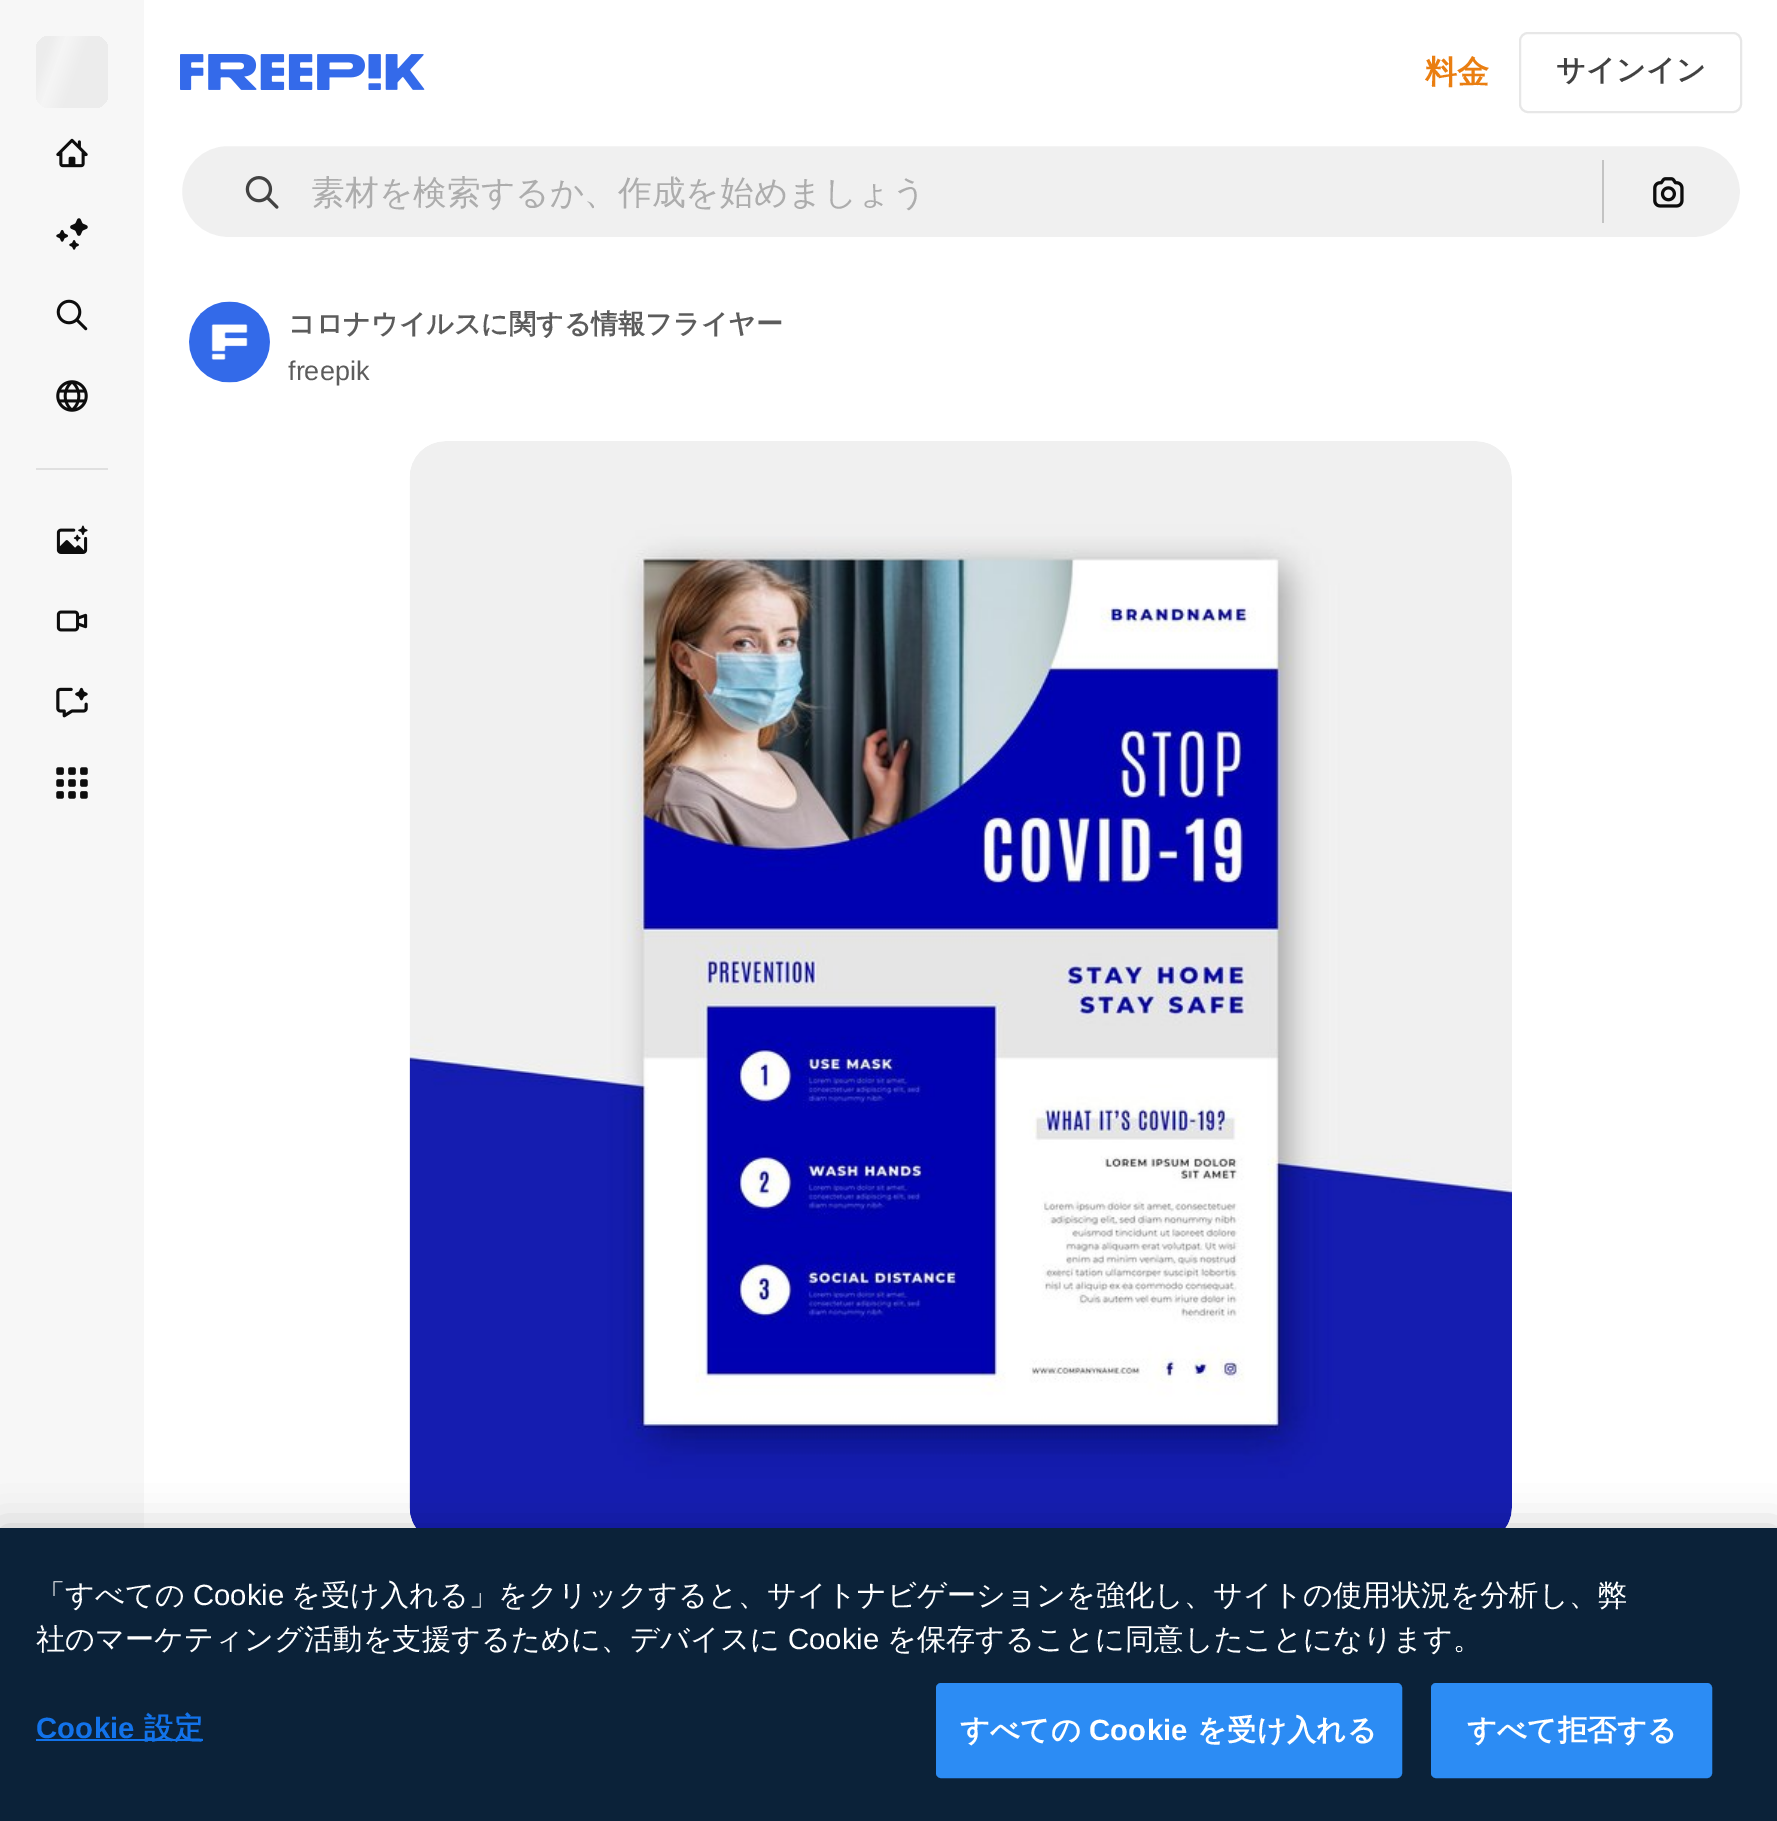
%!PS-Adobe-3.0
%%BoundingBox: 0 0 1777 1821
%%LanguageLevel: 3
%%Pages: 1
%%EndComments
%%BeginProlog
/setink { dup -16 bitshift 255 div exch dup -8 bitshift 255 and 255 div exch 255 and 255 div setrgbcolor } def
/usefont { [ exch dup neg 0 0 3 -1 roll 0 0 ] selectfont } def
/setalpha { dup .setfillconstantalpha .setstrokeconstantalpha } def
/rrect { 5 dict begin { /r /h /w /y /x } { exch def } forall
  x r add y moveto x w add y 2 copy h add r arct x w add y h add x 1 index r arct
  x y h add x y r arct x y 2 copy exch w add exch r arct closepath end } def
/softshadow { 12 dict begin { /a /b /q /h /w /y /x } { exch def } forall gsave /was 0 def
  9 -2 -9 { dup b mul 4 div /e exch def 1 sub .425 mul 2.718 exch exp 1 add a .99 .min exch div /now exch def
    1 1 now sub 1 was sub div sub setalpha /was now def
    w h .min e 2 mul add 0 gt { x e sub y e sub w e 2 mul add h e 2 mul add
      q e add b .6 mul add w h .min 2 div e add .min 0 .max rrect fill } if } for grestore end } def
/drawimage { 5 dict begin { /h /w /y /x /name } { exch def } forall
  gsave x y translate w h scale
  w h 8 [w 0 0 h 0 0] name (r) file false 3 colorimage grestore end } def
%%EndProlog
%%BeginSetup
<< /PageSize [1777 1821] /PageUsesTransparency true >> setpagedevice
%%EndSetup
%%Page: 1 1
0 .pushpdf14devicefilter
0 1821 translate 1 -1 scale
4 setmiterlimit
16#FFFFFF setink
0 0 1777 1821 rectfill
16#F7F7F7 setink
0 0 144 1528 rectfill
gsave 36 36 72 72 14 rrect clip newpath
<< /ShadingType 2 /ColorSpace /DeviceRGB /Coords [33 45 183 99] /Extend [true true] /Function << /FunctionType 3 /Domain [0 1] /Functions [<< /FunctionType 2 /Domain [0 1] /C0 [0.925 0.925 0.925] /C1 [0.925 0.925 0.925] /N 1 >> << /FunctionType 2 /Domain [0 1] /C0 [0.925 0.925 0.925] /C1 [0.961 0.961 0.961] /N 1 >> << /FunctionType 2 /Domain [0 1] /C0 [0.961 0.961 0.961] /C1 [0.925 0.925 0.925] /N 1 >> << /FunctionType 2 /Domain [0 1] /C0 [0.925 0.925 0.925] /C1 [0.925 0.925 0.925] /N 1 >>] /Bounds [0.08 0.18 0.33] /Encode [0 1 0 1 0 1 0 1] >> >> shfill grestore
(img1.raw) 56 138 32 30 drawimage
(img2.raw) 56 218 32 32 drawimage
(img3.raw) 56 299 32 32 drawimage
(img4.raw) 56 380 32 32 drawimage
16#E0E0E0 setink
36 468 72 2 rectfill
(img5.raw) 56 525 32 29 drawimage
(img6.raw) 56 610 32 22 drawimage
(img7.raw) 56 687 32 31 drawimage
(img8.raw) 56 767 32 32 drawimage
(img9.raw) 180 54 245 36 drawimage
/WenQuanYiZenHei-Bold 32 usefont
16#EA7E11 setink
1425 83 moveto (料金) show
16#E7E7E7 setink
2 setlinewidth
1520 33 221 79 8 rrect stroke
/WenQuanYiZenHei-Bold 29.25 usefont
16#424242 setink
1556 80 moveto (サインイン) show
16#F0F0F0 setink
181 145 1560 93 46.5 rrect gsave fill grestore
16#FFFFFF setink
stroke
(img10.raw) 245 176 34 33 drawimage
/WenQuanYiZenHei-Medium 33.75 usefont
16#ADADAD setink
311 204 moveto (素材を検索するか、作成を始めましょう) show
16#C3C3C3 setink
1602 160 2 63 rectfill
(img11.raw) 1653 177 31 31 drawimage
(img12.raw) 189 301 81 82 drawimage
/WenQuanYiZenHei-Bold 27 usefont
16#5C5C5C setink
288 333 moveto (コロナウイルスに関する情報フライヤー) show
/LiberationSans-Regular 27 usefont
288 380 moveto (freepik) show
(img13.raw) 409 441 1103 1087 drawimage
16#000000 setink
0 1528 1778 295 0 20 0.2 softshadow
16#0B2239 setink
0 1528 1777 293 rectfill
/WenQuanYiZenHei-Medium 29.25 usefont
16#FFFFFF setink
36 1605 moveto (「すべての) show
/LiberationSans-Regular 29.25 usefont
193 1605 moveto (Cookie) show
/WenQuanYiZenHei-Medium 29.25 usefont
291 1605 moveto (を受け入れる」をクリックすると、サイトナビゲーションを強化し、サイトの使用状況を分析し、弊) show
36 1649 moveto (社のマーケティング活動を支援するために、デバイスに) show
/LiberationSans-Regular 29.25 usefont
788 1649 moveto (Cookie) show
/WenQuanYiZenHei-Medium 29.25 usefont
887 1649 moveto (を保存することに同意したことになります。) show
/LiberationSans-Bold 29.25 usefont
16#1273EB setink
36 1738 moveto 0.25 0 (Cookie) ashow
36 1739 167 2 rectfill
/WenQuanYiZenHei-Bold 29.25 usefont
144 1738 moveto 0.25 0 (設定) ashow
16#2C8CF4 setink
937 1684 464 93 4 rrect gsave fill grestore
stroke
16#FFFFFF setink
960 1740 moveto 0.25 0 (すべての) ashow
/LiberationSans-Bold 29.25 usefont
1089 1740 moveto 0.25 0 (Cookie) ashow
/WenQuanYiZenHei-Bold 29.25 usefont
1197 1740 moveto 0.25 0 (を受け入れる) ashow
16#2C8CF4 setink
1432 1684 279 93 4 rrect gsave fill grestore
stroke
16#FFFFFF setink
1467 1740 moveto 0.25 0 (すべて拒否する) ashow
.poppdf14devicefilter showpage
%%EOF
